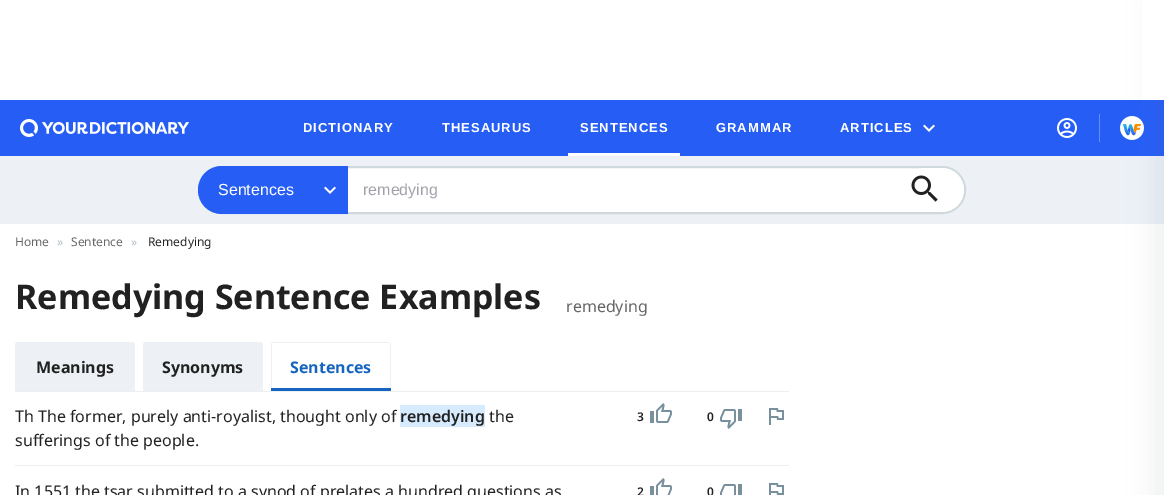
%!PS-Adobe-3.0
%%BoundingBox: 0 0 1164 495
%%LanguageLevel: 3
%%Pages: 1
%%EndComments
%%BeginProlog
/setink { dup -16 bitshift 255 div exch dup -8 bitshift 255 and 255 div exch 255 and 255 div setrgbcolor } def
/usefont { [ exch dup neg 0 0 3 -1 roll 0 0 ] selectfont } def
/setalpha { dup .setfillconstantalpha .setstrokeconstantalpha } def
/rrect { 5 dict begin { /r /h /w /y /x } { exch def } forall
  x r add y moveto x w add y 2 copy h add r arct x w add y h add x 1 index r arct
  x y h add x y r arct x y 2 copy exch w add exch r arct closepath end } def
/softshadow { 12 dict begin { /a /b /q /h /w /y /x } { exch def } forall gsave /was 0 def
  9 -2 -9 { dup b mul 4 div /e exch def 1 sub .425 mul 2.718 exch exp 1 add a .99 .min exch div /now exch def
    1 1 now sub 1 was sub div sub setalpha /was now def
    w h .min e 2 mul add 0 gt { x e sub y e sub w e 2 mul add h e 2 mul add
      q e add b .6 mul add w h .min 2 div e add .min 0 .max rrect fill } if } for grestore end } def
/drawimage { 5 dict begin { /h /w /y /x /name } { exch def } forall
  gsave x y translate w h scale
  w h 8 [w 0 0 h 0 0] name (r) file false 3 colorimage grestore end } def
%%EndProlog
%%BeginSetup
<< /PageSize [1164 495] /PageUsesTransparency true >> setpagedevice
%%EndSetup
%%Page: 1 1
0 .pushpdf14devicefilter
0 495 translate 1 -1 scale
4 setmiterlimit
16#FFFFFF setink
0 0 1164 495 rectfill
16#265EF5 setink
0 100 1164 56 rectfill
(img4.raw) 1120 116 24 24 drawimage
16#EDF1F6 setink
0 156 1164 68 rectfill
16#546E7A setink
1159 1 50 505 0 15 0.12 softshadow
16#FFFFFF setink
1142 0 22 100 rectfill
(img1.raw) 20 119 169 18 drawimage
/LiberationSans-Bold 13 usefont
303 132 moveto 1 0 (DICTIONARY) ashow
442 132 moveto 1 0 (THESAURUS) ashow
580 132 moveto 1 0 (SENTENCES) ashow
568 153 112 3 rectfill
716 132 moveto 1 0 (GRAMMAR) ashow
840 132 moveto 1 0 (ARTICLES) ashow
(img2.raw) 923 124 12 8 drawimage
16#678EF8 setink
1099 114 1 28 rectfill
(img3.raw) 1057 118 20 20 drawimage
16#FFFFFF setink
199 167 766 46 23 rrect gsave fill grestore
16#CFD8DC setink
2 setlinewidth
stroke
16#265EF5 setink
222 166 moveto 348 166 lineto 348 214 lineto 222 214 lineto 208.5 214 198 203.5 198 190 curveto 198 176.5 208.5 166 222 166 curveto closepath fill
/LiberationSans-Regular 16 usefont
16#FFFFFF setink
218 195 moveto (Sentences) show
(img2.raw) 324 186 12 8 drawimage
16#A1A1AA setink
363 195 moveto (remedying) show
16#FFFFFF setink
904 168 60 44 22 rrect fill
(img5.raw) 911 175 27 27 drawimage
/NotoSans-Regular 12 usefont
16#666666 setink
15 246 moveto (Home) show
16#B0BEC5 setink
57 246 moveto (») show
16#666666 setink
71 246 moveto (Sentence) show
16#B0BEC5 setink
131 246 moveto (») show
16#212121 setink
148 246 moveto (Remedying) show
/NotoSans-Bold 34 usefont
15 309 moveto (Remedying Sentence Examples) show
/NotoSans-Regular 16 usefont
16#666666 setink
566 312 moveto (remedying) show
16#EDF1F6 setink
17 343 moveto 133 343 lineto 133.5 343 134 343.5 134 344 curveto 134 391 lineto 16 391 lineto 16 344 lineto 16 343.5 16.5 343 17 343 curveto closepath fill
[
    [16 342 118 1 16#EDF1F6]
    [134 343 1 48 16#EDF1F6]
    [15 343 1 48 16#EDF1F6]
] { aload pop setink rectfill } forall
/NotoSans-Bold 16 usefont
16#212121 setink
36 373 moveto (Meanings) show
16#EDF1F6 setink
145 343 moveto 261 343 lineto 261.5 343 262 343.5 262 344 curveto 262 391 lineto 144 391 lineto 144 344 lineto 144 343.5 144.5 343 145 343 curveto closepath fill
[
    [144 342 118 1 16#EDF1F6]
    [262 343 1 48 16#EDF1F6]
    [143 343 1 48 16#EDF1F6]
] { aload pop setink rectfill } forall
16#212121 setink
162 373 moveto (Synonyms) show
[
    [272 342 118 1 16#EDF1F6]
    [390 343 1 48 16#EDF1F6]
    [271 343 1 48 16#EDF1F6]
] { aload pop setink rectfill } forall
16#1565C0 setink
290 373 moveto (Sentences) show
[
    [271 388 120 3 16#1565C0]
    [15 391 774 1 16#ECEFF1]
    [15 465 774 1 16#ECEFF1]
] { aload pop setink rectfill } forall
/NotoSans-Regular 16 usefont
16#212121 setink
15 422 moveto (Th The former, purely anti-royalist, thought only of) show
16#D6EBFD setink
400 405 85 22 rectfill
/NotoSans-SemiBold 16 usefont
16#212121 setink
400 422 moveto (remedying) show
/NotoSans-Regular 16 usefont
489 422 moveto (the) show
15 446 moveto (sufferings of the people.) show
/NotoSans-SemiBold 12 usefont
637 421 moveto (3) show
(img6.raw) 650 403 22 20 drawimage
707 421 moveto (0) show
(img7.raw) 720 409 22 20 drawimage
(img8.raw) 769 408 15 17 drawimage
/NotoSans-Regular 16 usefont
15 497 moveto (In 1551 the tsar submitted to a synod of prelates a hundred questions as) show
/NotoSans-SemiBold 12 usefont
637 496 moveto (2) show
(img9.raw) 650 478 22 17 drawimage
707 496 moveto (0) show
(img10.raw) 720 484 22 11 drawimage
(img11.raw) 769 483 15 12 drawimage
.poppdf14devicefilter showpage
%%EOF
